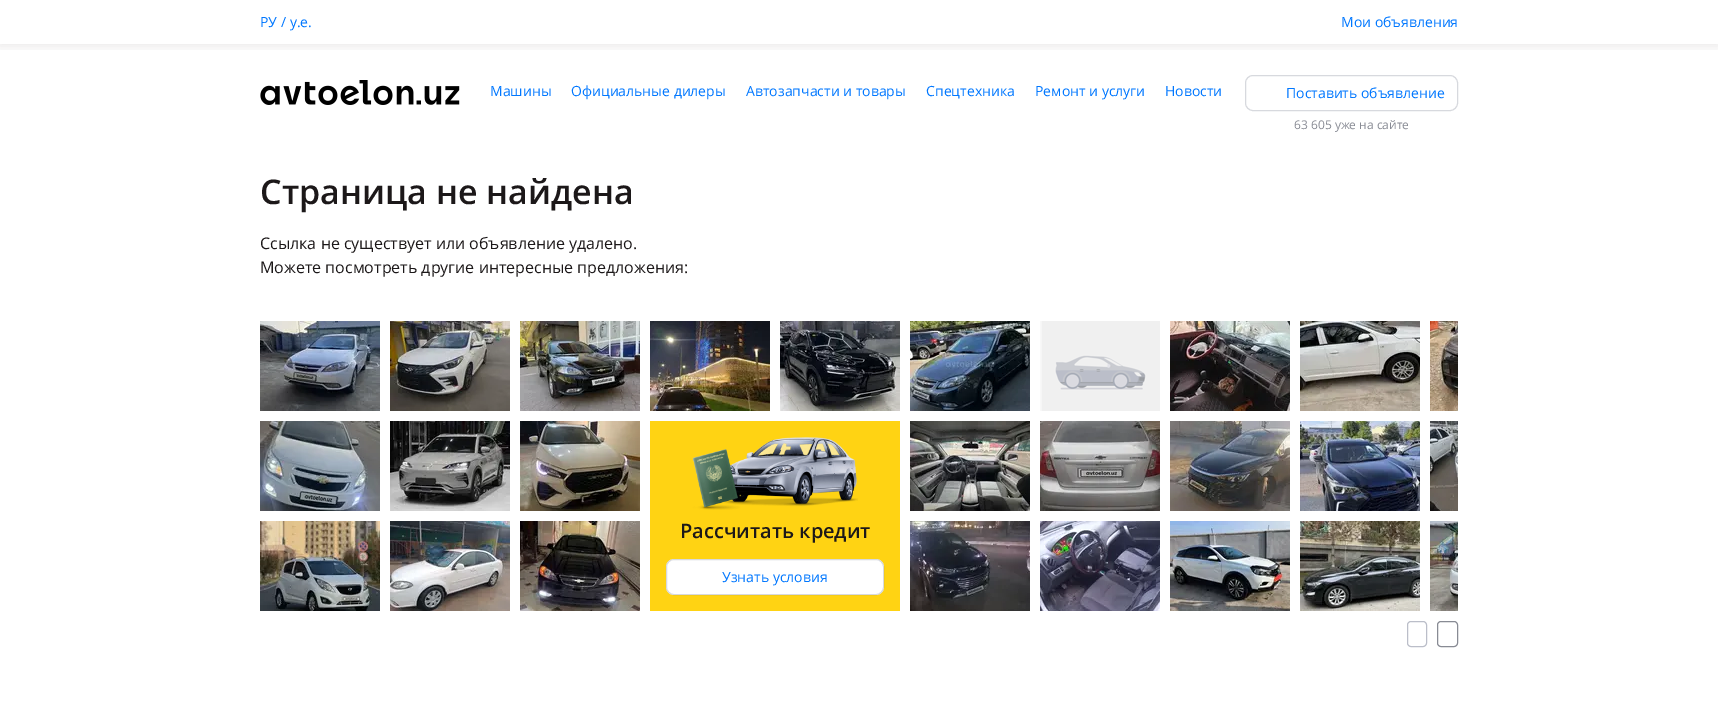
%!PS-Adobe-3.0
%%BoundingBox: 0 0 1718 706
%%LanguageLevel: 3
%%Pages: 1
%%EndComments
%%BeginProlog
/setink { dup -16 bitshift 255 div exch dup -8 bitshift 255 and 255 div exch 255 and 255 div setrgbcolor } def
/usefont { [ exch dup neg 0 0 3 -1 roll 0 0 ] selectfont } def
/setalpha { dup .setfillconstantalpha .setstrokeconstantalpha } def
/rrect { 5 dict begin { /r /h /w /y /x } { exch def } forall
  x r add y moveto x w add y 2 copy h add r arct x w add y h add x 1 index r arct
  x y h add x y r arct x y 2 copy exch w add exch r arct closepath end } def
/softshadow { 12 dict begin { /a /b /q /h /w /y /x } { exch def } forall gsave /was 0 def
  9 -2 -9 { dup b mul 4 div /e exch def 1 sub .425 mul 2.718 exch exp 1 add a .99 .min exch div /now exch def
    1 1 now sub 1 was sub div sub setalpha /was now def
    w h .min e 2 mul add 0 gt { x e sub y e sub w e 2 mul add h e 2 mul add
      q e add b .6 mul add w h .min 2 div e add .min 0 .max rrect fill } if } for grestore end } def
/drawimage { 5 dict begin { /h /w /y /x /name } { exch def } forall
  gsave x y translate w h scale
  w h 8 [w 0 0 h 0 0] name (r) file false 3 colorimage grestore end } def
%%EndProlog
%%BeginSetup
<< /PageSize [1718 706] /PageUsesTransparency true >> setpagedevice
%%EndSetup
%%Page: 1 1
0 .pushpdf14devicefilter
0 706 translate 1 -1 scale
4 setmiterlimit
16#FFFFFF setink
0 0 1718 706 rectfill
gsave
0 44 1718 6 rectclip
16#1C1819 setink
0 2 1718 44 0 5 0.1 softshadow
grestore
/OpenSans-Regular 14 usefont
16#0077FF setink
260 27 moveto (РУ / у.е.) show
1341 27 moveto (Мои объявления) show
(img1.raw) 260 80 200 25 drawimage
[
    [(Машины) 490 96]
    [(Официальные дилеры) 571 96]
    [(Автозапчасти и товары) 746 96]
    [(Спецтехника) 926 96]
    [(Ремонт и услуги) 1035 96]
    [(Новости) 1165 96]
] { aload pop moveto show } forall
16#D7D9DE setink
1245.5 75.5 212 35 7.5 rrect stroke
16#0077FF setink
1286 98 moveto (Поставить объявление) show
/OpenSans-Regular 12 usefont
16#888B94 setink
1294 129 moveto (63 605 уже на сайте) show
/OpenSans-SemiBold 34 usefont
16#1C1819 setink
260 204 moveto (Страница не найдена) show
/OpenSans-Regular 16 usefont
260 249 moveto (Cсылка не существует или объявление удалено.) show
260 273 moveto (Можете посмотреть другие интересные предложения:) show
(img2.raw) 260 321 120 90 drawimage
(img3.raw) 390 321 120 90 drawimage
(img4.raw) 520 321 120 90 drawimage
(img5.raw) 650 321 120 90 drawimage
(img6.raw) 780 321 120 90 drawimage
(img7.raw) 910 321 120 90 drawimage
(img8.raw) 1040 321 120 90 drawimage
(img9.raw) 1170 321 120 90 drawimage
(img10.raw) 1300 321 120 90 drawimage
(img11.raw) 1430 321 28 90 drawimage
(img12.raw) 260 421 120 90 drawimage
(img13.raw) 390 421 120 90 drawimage
(img14.raw) 520 421 120 90 drawimage
(img15.raw) 910 421 120 90 drawimage
(img16.raw) 1040 421 120 90 drawimage
(img17.raw) 1170 421 120 90 drawimage
(img18.raw) 1300 421 120 90 drawimage
(img19.raw) 1430 421 28 90 drawimage
(img20.raw) 260 521 120 90 drawimage
(img21.raw) 390 521 120 90 drawimage
(img22.raw) 520 521 120 90 drawimage
16#FFD313 setink
650 421 250 190 rectfill
(img23.raw) 692 437 166 73 drawimage
/OpenSans-SemiBold 20 usefont
16#1C1819 setink
680 538 moveto (Рассчитать кредит) show
16#FFFFFF setink
666 559 218 36 8 rrect fill
0.23 setalpha
16#505B71 setink
666.5 559.5 217 35 7.5 rrect stroke
/OpenSans-Regular 14 usefont
1 setalpha
16#0077FF setink
722 582 moveto (Узнать условия) show
(img24.raw) 910 521 120 90 drawimage
(img25.raw) 1040 521 120 90 drawimage
(img26.raw) 1170 521 120 90 drawimage
(img27.raw) 1300 521 120 90 drawimage
(img28.raw) 1430 521 28 90 drawimage
16#BBBEC9 setink
1407.5 621.5 19 25 3.5 rrect stroke
16#888B94 setink
1437.5 621.5 20 25 3.5 rrect stroke
.poppdf14devicefilter showpage
%%EOF
